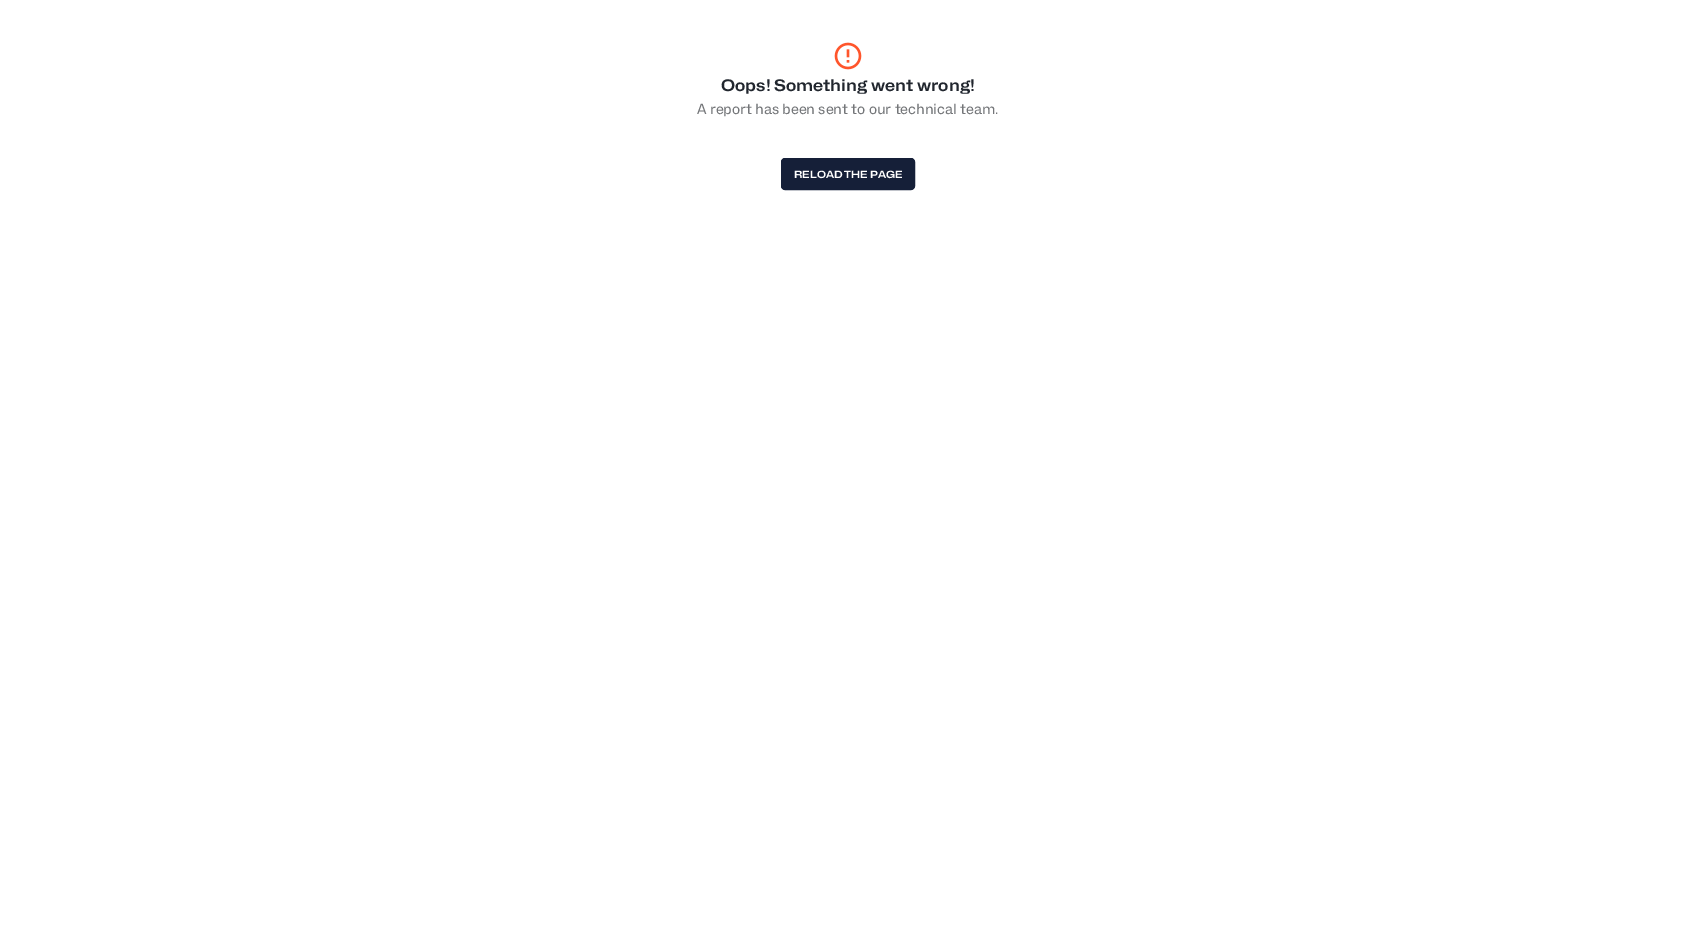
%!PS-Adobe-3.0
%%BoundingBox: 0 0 1696 946
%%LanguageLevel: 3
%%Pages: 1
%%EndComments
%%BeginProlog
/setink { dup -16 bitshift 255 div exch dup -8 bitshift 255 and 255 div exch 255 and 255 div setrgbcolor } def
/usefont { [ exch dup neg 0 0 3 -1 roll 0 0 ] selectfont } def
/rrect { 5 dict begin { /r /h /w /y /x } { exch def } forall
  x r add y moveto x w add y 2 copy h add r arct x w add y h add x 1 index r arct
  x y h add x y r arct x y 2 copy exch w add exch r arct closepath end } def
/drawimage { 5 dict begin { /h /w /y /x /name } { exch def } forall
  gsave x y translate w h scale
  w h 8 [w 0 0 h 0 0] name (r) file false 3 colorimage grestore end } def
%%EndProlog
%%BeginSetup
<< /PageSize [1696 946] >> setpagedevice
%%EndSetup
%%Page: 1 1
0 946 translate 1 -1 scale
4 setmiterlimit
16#FFFFFF setink
0 0 1696 946 rectfill
(img1.raw) 834 42 28 28 drawimage
/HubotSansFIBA-SemiBold 16 usefont
16#21262E setink
721 91 moveto (Oops! Something went wrong!) show
/HubotSansFIBA-Regular 14 usefont
16#747679 setink
697 114 moveto -0.15 0 (A report has been sent to our technical team.) ashow
16#151F38 setink
781.5 158.5 133 31 3.5 rrect gsave fill grestore
stroke
/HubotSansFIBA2-SemiBold 10 usefont
16#FFFFFF setink
794 178 moveto (RELOAD THE PAGE) show
showpage
%%EOF
